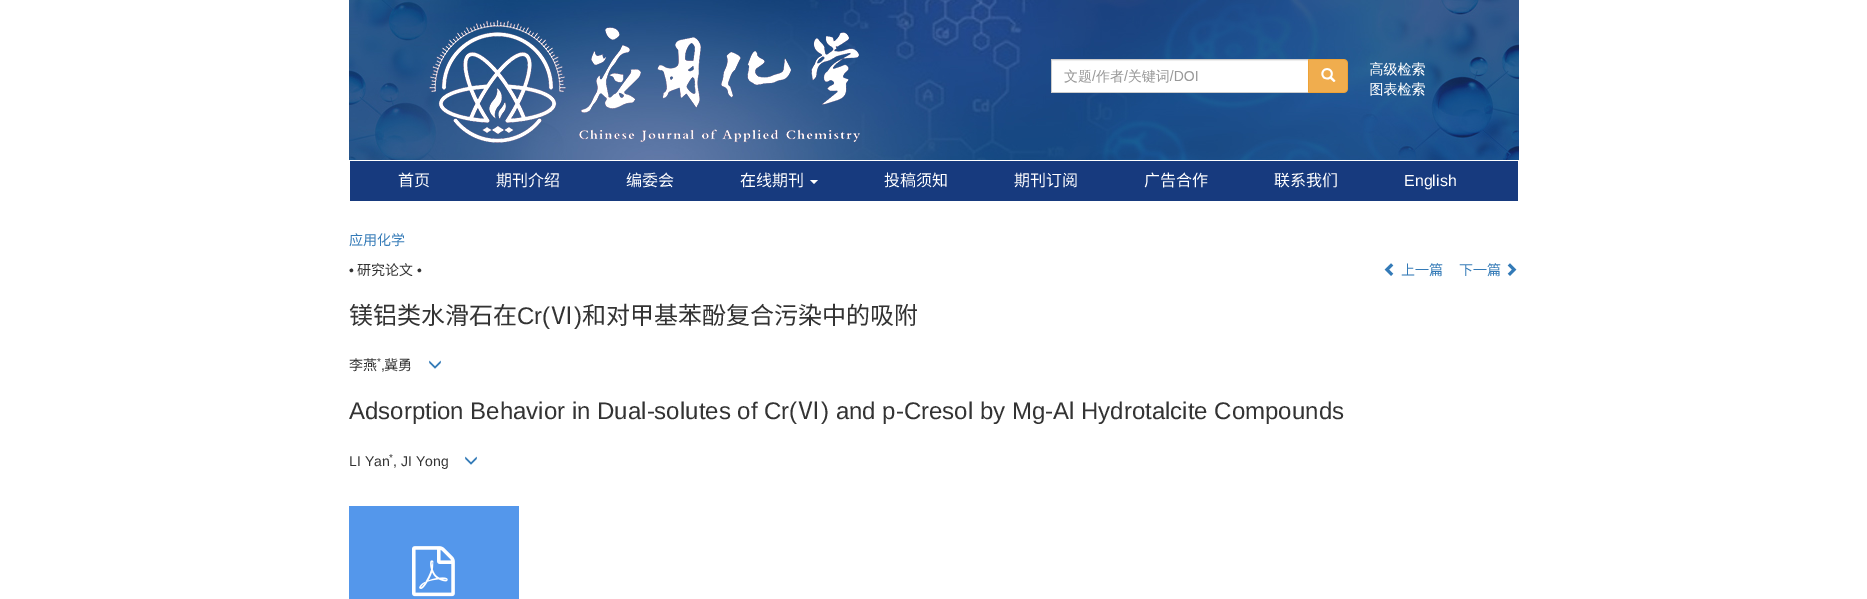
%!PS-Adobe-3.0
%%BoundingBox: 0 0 1867 599
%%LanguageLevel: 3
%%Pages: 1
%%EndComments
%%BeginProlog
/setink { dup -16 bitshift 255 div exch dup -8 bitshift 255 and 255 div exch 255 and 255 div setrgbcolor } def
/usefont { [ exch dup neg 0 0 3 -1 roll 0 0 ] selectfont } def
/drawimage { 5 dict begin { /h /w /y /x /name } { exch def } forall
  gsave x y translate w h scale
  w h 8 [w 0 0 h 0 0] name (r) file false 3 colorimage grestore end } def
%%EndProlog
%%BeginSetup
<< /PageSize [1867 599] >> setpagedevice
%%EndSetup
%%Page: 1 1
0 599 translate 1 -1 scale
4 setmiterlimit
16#FFFFFF setink
0 0 1867 599 rectfill
(img1.raw) 349 0 1170 160 drawimage
(img2.raw) 429 20 431 123 drawimage
(img3.raw) 1051 59 374 37 drawimage
16#173A7E setink
350 161 1168 40 rectfill
/NotoSansCJKSC-Regular 16 usefont
16#FFFFFF setink
[
    [(首页) 398 186]
    [(期刊介绍) 496 186]
    [(编委会) 626 186]
    [(在线期刊) 740 186]
] { aload pop moveto show } forall
810 180 moveto 818 180 lineto 814 184 lineto closepath fill
[
    [(投稿须知) 884 186]
    [(期刊订阅) 1014 186]
    [(广告合作) 1144 186]
    [(联系我们) 1274 186]
] { aload pop moveto show } forall
/LiberationSans-Regular 16 usefont
1404 186 moveto (English) show
/NotoSansCJKSC-Regular 14 usefont
16#337AB7 setink
349 245 moveto (应用化学) show
/LiberationSans-Regular 14 usefont
16#333333 setink
349 275 moveto (•) show
/NotoSansCJKSC-Regular 14 usefont
357 275 moveto (研究论文) show
/LiberationSans-Regular 14 usefont
417 275 moveto (•) show
(img4.raw) 1384 263 10 13 drawimage
/NotoSansCJKSC-Regular 14 usefont
16#337AB7 setink
1401 275 moveto (上一篇) show
1459 275 moveto (下一篇) show
(img5.raw) 1507 263 10 13 drawimage
/NotoSansCJKSC-Regular 24 usefont
16#333333 setink
349 324 moveto (镁铝类水滑石在) show
/LiberationSans-Regular 24 usefont
517 324 moveto (Cr\() show
/NotoSansCJKSC-Regular 24 usefont
550 324 moveto (Ⅵ) show
/LiberationSans-Regular 24 usefont
574 324 moveto (\)) show
/NotoSansCJKSC-Regular 24 usefont
582 324 moveto (和对甲基苯酚复合污染中的吸附) show
/NotoSansCJKSC-Regular 14 usefont
349 370 moveto (李燕) show
/LiberationSans-Regular 10 usefont
377 365 moveto (*) show
/NotoSansCJKSC-Regular 14 usefont
384 370 moveto (冀勇) show
(img6.raw) 429 360 12 9 drawimage
/LiberationSans-Regular 14 usefont
381 370 moveto (,) show
/LiberationSans-Regular 24 usefont
349 419 moveto (Adsorption Behavior in Dual-solutes of Cr\() show
/NotoSansCJKSC-Regular 24 usefont
797 419 moveto (Ⅵ) show
/LiberationSans-Regular 24 usefont
821 419 moveto (\) and p-Cresol by Mg-Al Hydrotalcite Compounds) show
/LiberationSans-Regular 10 usefont
389 461 moveto (*) show
/LiberationSans-Regular 14 usefont
349 466 moveto (LI Yan , JI Yong) show
(img6.raw) 465 456 12 9 drawimage
16#5497EB setink
349 506 170 93 rectfill
(img7.raw) 412 546 43 51 drawimage
showpage
%%EOF
